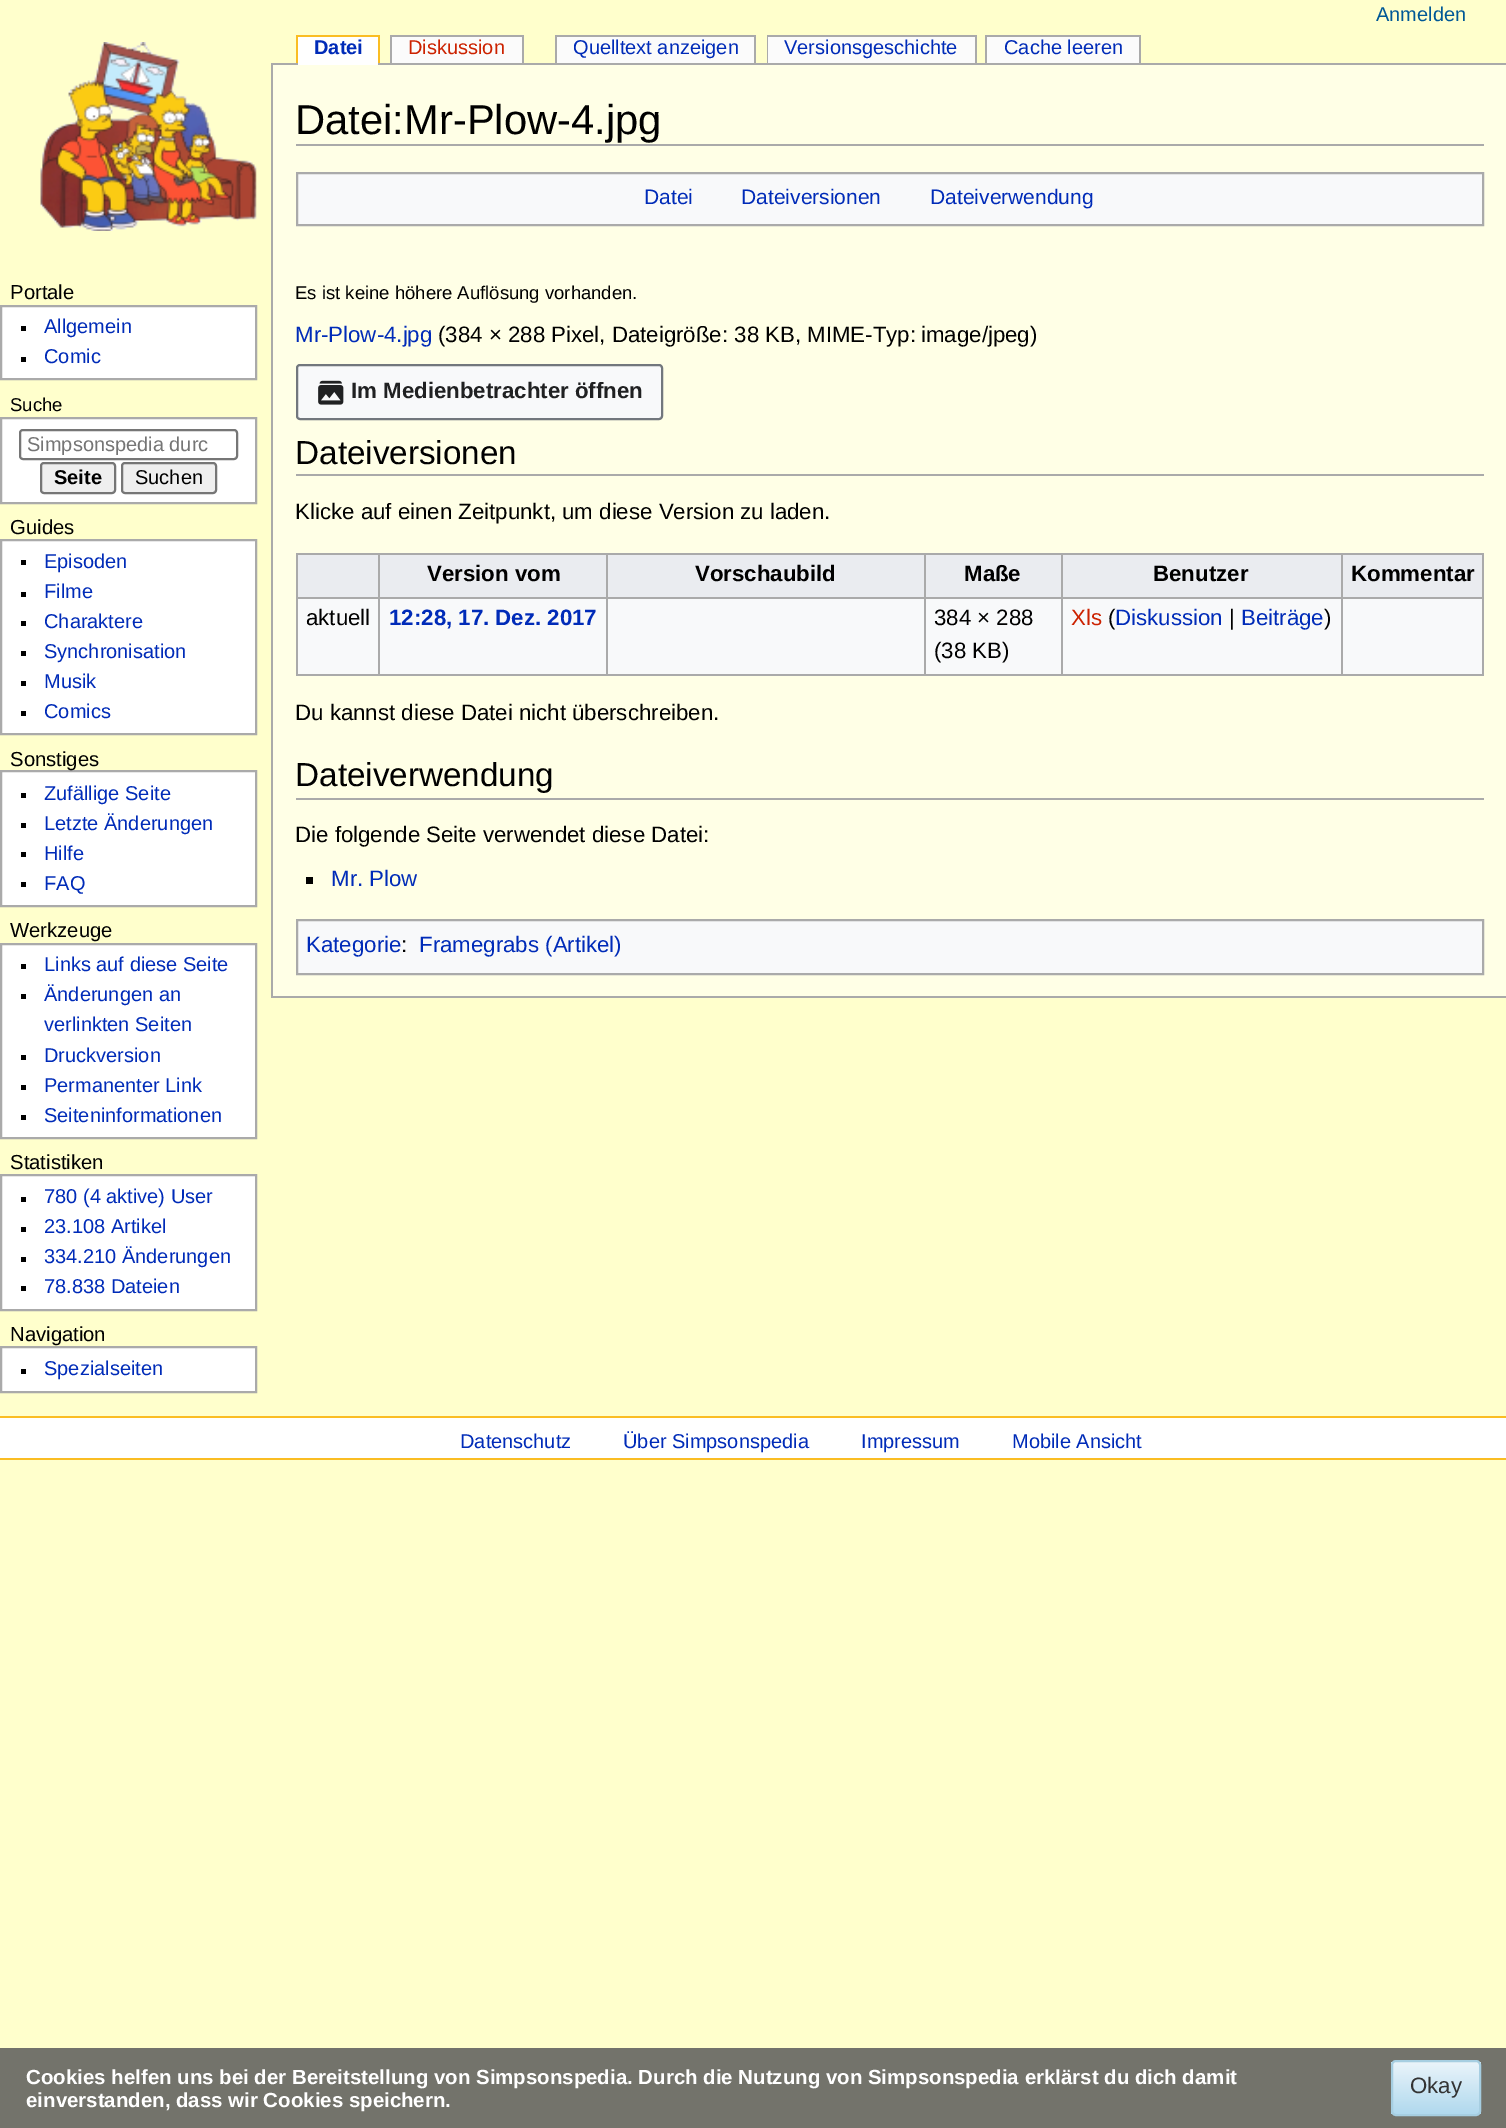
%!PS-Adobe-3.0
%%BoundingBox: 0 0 1506 2128
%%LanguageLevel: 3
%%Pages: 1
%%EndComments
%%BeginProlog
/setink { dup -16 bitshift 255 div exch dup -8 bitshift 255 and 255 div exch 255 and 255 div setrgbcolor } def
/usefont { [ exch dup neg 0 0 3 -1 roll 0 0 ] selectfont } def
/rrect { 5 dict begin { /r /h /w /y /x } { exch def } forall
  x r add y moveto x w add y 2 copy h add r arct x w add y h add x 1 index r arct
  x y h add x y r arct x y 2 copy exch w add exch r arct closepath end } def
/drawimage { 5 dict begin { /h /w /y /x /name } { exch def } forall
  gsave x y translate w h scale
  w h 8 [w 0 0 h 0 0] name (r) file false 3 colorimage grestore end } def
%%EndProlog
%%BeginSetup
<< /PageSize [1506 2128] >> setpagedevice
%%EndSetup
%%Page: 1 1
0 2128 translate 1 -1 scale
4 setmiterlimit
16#FFFFCC setink
0 0 1506 2128 rectfill
/LiberationSans-Regular 20 usefont
16#005896 setink
1376 21 moveto (Anmelden) show
(img1.raw) 40 42 217 189 drawimage
16#AAAAAA setink
271 63 1235 2 rectfill
16#FFFFFF setink
298 37 80 28 rectfill
/LiberationSans-Bold 20 usefont
16#002BB8 setink
314 54 moveto (Datei) show
[
    [296 35 84 2 16#FABD23]
    [378 35 2 28 16#FABD23]
    [296 35 2 28 16#FABD23]
    [392 37 130 26 16#FBFBFB]
] { aload pop setink rectfill } forall
/LiberationSans-Regular 20 usefont
16#CC2200 setink
408 54 moveto (Diskussion) show
[
    [390 35 133 2 16#AAAAAA]
    [522 35 2 28 16#AAAAAA]
    [390 35 2 28 16#AAAAAA]
    [557 37 197 26 16#FBFBFB]
] { aload pop setink rectfill } forall
16#002BB8 setink
573 54 moveto (Quelltext anzeigen) show
[
    [555 35 201 2 16#AAAAAA]
    [754 35 2 28 16#AAAAAA]
    [555 35 2 28 16#AAAAAA]
    [767 35 210 2 16#AAAAAA]
    [767 35 2 28 16#AAAAAA]
    [768 37 207 26 16#FBFBFB]
] { aload pop setink rectfill } forall
16#002BB8 setink
784 54 moveto (Versionsgeschichte) show
16#AAAAAA setink
975 35 2 28 rectfill
16#FBFBFB setink
987 37 152 26 rectfill
16#002BB8 setink
1004 54 moveto (Cache leeren) show
[
    [985 35 156 2 16#AAAAAA]
    [1139 35 2 28 16#AAAAAA]
    [985 35 2 28 16#AAAAAA]
] { aload pop setink rectfill } forall
/LiberationSans-Regular 20.25 usefont
16#000000 setink
10 299 moveto (Portale) show
16#FFFFFF setink
1 306 moveto 256 306 lineto 256 379 lineto 1 379 lineto closepath gsave fill grestore
16#AAAAAA setink
2 setlinewidth
stroke
16#000000 setink
21 326 5 5 rectfill
/LiberationSans-Regular 20 usefont
16#002BB8 setink
44 333 moveto (Allgemein) show
16#000000 setink
21 357 5 5 rectfill
16#002BB8 setink
44 363 moveto (Comic) show
/LiberationSans-Regular 18.5 usefont
16#000000 setink
10 411 moveto (Suche) show
16#FFFFFF setink
1 418 moveto 256 418 lineto 256 503 lineto 1 503 lineto closepath gsave fill grestore
16#AAAAAA setink
stroke
16#767676 setink
20 430 217 29 3 rrect stroke
gsave
26 434 184 21 rectclip
/LiberationSans-Regular 20 usefont
16#757575 setink
27 451 moveto (Simpsonspedia durc) show
grestore
16#EFEFEF setink
41 463 74 30 3 rrect gsave fill grestore
16#767676 setink
stroke
/LiberationSans-Bold 20 usefont
16#000000 setink
54 484 moveto (Seite) show
16#EFEFEF setink
122 463 94 30 3 rrect gsave fill grestore
16#767676 setink
stroke
/LiberationSans-Regular 20 usefont
16#000000 setink
135 484 moveto (Suchen) show
/LiberationSans-Regular 20.25 usefont
10 534 moveto (Guides) show
16#FFFFFF setink
1 540 moveto 256 540 lineto 256 734 lineto 1 734 lineto closepath gsave fill grestore
16#AAAAAA setink
stroke
16#000000 setink
21 560 5 5 rectfill
/LiberationSans-Regular 20 usefont
16#002BB8 setink
44 568 moveto (Episoden) show
16#000000 setink
21 592 5 5 rectfill
16#002BB8 setink
44 598 moveto (Filme) show
16#000000 setink
21 621 5 5 rectfill
16#002BB8 setink
44 628 moveto (Charaktere) show
16#000000 setink
21 651 5 5 rectfill
16#002BB8 setink
44 658 moveto (Synchronisation) show
16#000000 setink
21 681 5 5 rectfill
16#002BB8 setink
44 688 moveto (Musik) show
16#000000 setink
21 711 5 5 rectfill
16#002BB8 setink
44 718 moveto (Comics) show
16#FFFFFF setink
1 771 moveto 256 771 lineto 256 906 lineto 1 906 lineto closepath gsave fill grestore
16#AAAAAA setink
stroke
/LiberationSans-Regular 20.25 usefont
16#000000 setink
10 766 moveto (Sonstiges) show
21 793 5 5 rectfill
/LiberationSans-Regular 20 usefont
16#002BB8 setink
44 800 moveto (Zufällige Seite) show
16#000000 setink
21 823 5 5 rectfill
16#002BB8 setink
44 830 moveto (Letzte Änderungen) show
16#000000 setink
21 852 5 5 rectfill
16#002BB8 setink
44 860 moveto (Hilfe) show
16#000000 setink
21 882 5 5 rectfill
16#002BB8 setink
44 890 moveto (FAQ) show
/LiberationSans-Regular 20.25 usefont
16#000000 setink
10 937 moveto (Werkzeuge) show
16#FFFFFF setink
1 944 moveto 256 944 lineto 256 1138 lineto 1 1138 lineto closepath gsave fill grestore
16#AAAAAA setink
stroke
16#000000 setink
21 964 5 5 rectfill
/LiberationSans-Regular 20 usefont
16#002BB8 setink
44 971 moveto (Links auf diese Seite) show
16#000000 setink
21 994 5 5 rectfill
16#002BB8 setink
44 1001 moveto (Änderungen an) show
44 1031 moveto (verlinkten Seiten) show
16#000000 setink
21 1055 5 5 rectfill
16#002BB8 setink
44 1062 moveto (Druckversion) show
16#000000 setink
21 1085 5 5 rectfill
16#002BB8 setink
44 1092 moveto (Permanenter Link) show
16#000000 setink
21 1115 5 5 rectfill
16#002BB8 setink
44 1122 moveto (Seiteninformationen) show
/LiberationSans-Regular 20.25 usefont
16#000000 setink
10 1169 moveto (Statistiken) show
16#FFFFFF setink
1 1175 moveto 256 1175 lineto 256 1310 lineto 1 1310 lineto closepath gsave fill grestore
16#AAAAAA setink
stroke
16#000000 setink
21 1197 5 5 rectfill
/LiberationSans-Regular 20 usefont
16#002BB8 setink
44 1203 moveto (780 \(4 aktive\) User) show
16#000000 setink
21 1227 5 5 rectfill
16#002BB8 setink
44 1233 moveto (23.108 Artikel) show
16#000000 setink
21 1257 5 5 rectfill
16#002BB8 setink
44 1263 moveto (334.210 Änderungen) show
16#000000 setink
21 1286 5 5 rectfill
16#002BB8 setink
44 1293 moveto (78.838 Dateien) show
/LiberationSans-Regular 20.25 usefont
16#000000 setink
10 1341 moveto (Navigation) show
16#FFFFFF setink
1 1347 moveto 256 1347 lineto 256 1392 lineto 1 1392 lineto closepath gsave fill grestore
16#AAAAAA setink
stroke
16#000000 setink
21 1369 5 5 rectfill
/LiberationSans-Regular 20 usefont
16#002BB8 setink
44 1375 moveto (Spezialseiten) show
[
    [273 65 1233 931 16#FFFFE6]
    [271 996 1235 2 16#AAAAAA]
    [271 63 2 935 16#AAAAAA]
    [296 144 1188 2 16#AAAAAA]
] { aload pop setink rectfill } forall
/LiberationSans-Regular 41.75 usefont
16#000000 setink
295 134 moveto (Datei:Mr-Plow-4.jpg) show
16#F8F9FA setink
297 173 moveto 1483 173 lineto 1483 225 lineto 297 225 lineto closepath gsave fill grestore
16#AAAAAA setink
stroke
/LiberationSans-Regular 21 usefont
16#002BB8 setink
[
    [(Datei) 644 204]
    [(Dateiversionen) 741 204]
    [(Dateiverwendung) 930 204]
] { aload pop moveto show } forall
/LiberationSans-Regular 18.5 usefont
16#000000 setink
295 299 moveto (Es ist keine höhere Auflösung vorhanden.) show
/LiberationSans-Regular 22.25 usefont
16#002BB8 setink
295 342 moveto (Mr-Plow-4.jpg) show
16#000000 setink
438 342 moveto (\(384 × 288 Pixel, Dateigröße: 38 KB, MIME-Typ:) show
921 342 moveto (image/jpeg\)) show
16#F8F9FA setink
297 365 365 54 3 rrect gsave fill grestore
16#72777D setink
stroke
(img2.raw) 318 380 26 25 drawimage
/LiberationSans-Bold 22.25 usefont
16#202122 setink
351 398 moveto (Im Medienbetrachter öffnen) show
16#AAAAAA setink
296 474 1188 2 rectfill
/LiberationSans-Regular 33.25 usefont
16#000000 setink
295 464 moveto (Dateiversionen) show
/LiberationSans-Regular 22.25 usefont
295 519 moveto (Klicke auf einen Zeitpunkt, um diese Version zu laden.) show
[
    [298 599 1184 75 16#F8F9FA]
    [296 553 1188 2 16#AAAAAA]
    [1482 553 2 123 16#AAAAAA]
    [296 674 1188 2 16#AAAAAA]
    [296 553 2 123 16#AAAAAA]
    [298 555 80 42 16#EAECF0]
    [380 555 226 42 16#EAECF0]
    [1341 597 143 2 16#AAAAAA]
    [1341 597 2 79 16#AAAAAA]
    [1061 597 281 2 16#AAAAAA]
    [1061 597 2 79 16#AAAAAA]
    [924 597 138 2 16#AAAAAA]
    [924 597 2 79 16#AAAAAA]
    [606 597 320 2 16#AAAAAA]
    [606 597 2 79 16#AAAAAA]
    [378 597 229 2 16#AAAAAA]
    [378 597 2 79 16#AAAAAA]
    [296 597 84 2 16#AAAAAA]
    [378 553 2 46 16#AAAAAA]
] { aload pop setink rectfill } forall
/LiberationSans-Bold 22.25 usefont
16#000000 setink
427 581 moveto (Version vom) show
16#EAECF0 setink
608 555 316 42 rectfill
16#AAAAAA setink
606 553 2 46 rectfill
16#000000 setink
695 581 moveto (Vorschaubild) show
16#EAECF0 setink
926 555 135 42 rectfill
16#AAAAAA setink
924 553 2 46 rectfill
16#000000 setink
964 581 moveto (Maße) show
16#EAECF0 setink
1063 555 278 42 rectfill
16#AAAAAA setink
1061 553 2 46 rectfill
16#000000 setink
1153 581 moveto (Benutzer) show
16#EAECF0 setink
1343 555 139 42 rectfill
16#AAAAAA setink
1341 553 2 46 rectfill
16#000000 setink
1351 581 moveto (Kommentar) show
/LiberationSans-Regular 22.25 usefont
306 625 moveto (aktuell) show
/LiberationSans-Bold 22.25 usefont
16#002BB8 setink
389 625 moveto (12:28, 17. Dez. 2017) show
/LiberationSans-Regular 22.25 usefont
16#000000 setink
934 625 moveto (384 × 288) show
934 658 moveto (\(38 KB\)) show
16#CC2200 setink
1071 625 moveto (Xls) show
16#000000 setink
1108 625 moveto (\() show
16#002BB8 setink
1115 625 moveto (Diskussion) show
16#000000 setink
1229 625 moveto (|) show
16#002BB8 setink
1241 625 moveto (Beiträge) show
16#000000 setink
1324 625 moveto (\)) show
295 720 moveto (Du kannst diese Datei nicht überschreiben.) show
16#AAAAAA setink
296 798 1188 2 rectfill
/LiberationSans-Regular 33.25 usefont
16#000000 setink
295 786 moveto (Dateiverwendung) show
/LiberationSans-Regular 22.25 usefont
295 842 moveto (Die folgende Seite verwendet diese Datei:) show
306 877 7 7 rectfill
16#002BB8 setink
331 886 moveto (Mr. Plow) show
16#F8F9FA setink
297 920 moveto 1483 920 lineto 1483 974 lineto 297 974 lineto closepath gsave fill grestore
16#AAAAAA setink
stroke
16#002BB8 setink
306 952 moveto (Kategorie) show
16#000000 setink
401 952 moveto (:) show
16#002BB8 setink
419 952 moveto (Framegrabs \(Artikel\)) show
16#73736B setink
0 2048 1506 80 rectfill
/LiberationSans-Bold 20.45 usefont
16#FFFFFF setink
26 2084 moveto (Cookies helfen uns bei der Bereitstellung von Simpsonspedia. Durch die Nutzung von Simpsonspedia erklärst du dich damit) show
26 2107 moveto (einverstanden, dass wir Cookies speichern.) show
gsave
1391 2060 90 56 5 rrect clip newpath
gsave 1391 2062 moveto 1481 2062 lineto 1481 2114 lineto 1391 2114 lineto closepath clip newpath
<< /ShadingType 2 /ColorSpace /DeviceRGB /Coords [1436 2062 1436 2114] /Extend [true true] /Function << /FunctionType 2 /Domain [0 1] /C0 [0.918 0.957 0.98] /C1 [0.69 0.851 0.933] /N 1 >> >> shfill grestore
grestore
16#A6CEE1 setink
1392 2061 88 54 4 rrect stroke
/LiberationSans-Regular 22.25 usefont
16#333333 setink
1410 2093 moveto (Okay) show
[
    [0 1418 1506 40 16#FFFFFF]
    [0 1416 1506 2 16#FABD23]
    [0 1458 1506 2 16#FABD23]
] { aload pop setink rectfill } forall
/LiberationSans-Regular 20 usefont
16#002BB8 setink
[
    [(Datenschutz) 460 1448]
    [(Über Simpsonspedia) 623 1448]
    [(Impressum) 861 1448]
    [(Mobile Ansicht) 1012 1448]
] { aload pop moveto show } forall
showpage
%%EOF
